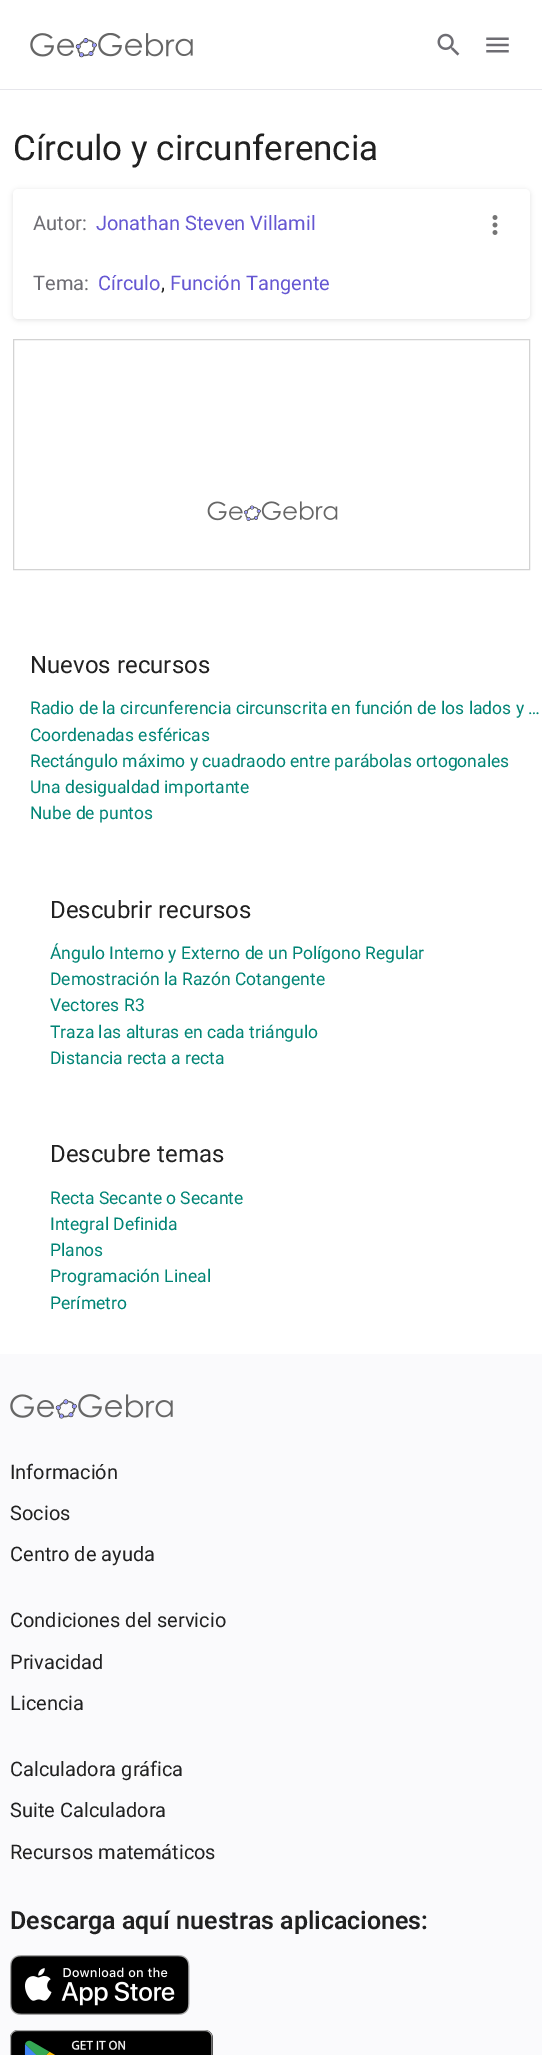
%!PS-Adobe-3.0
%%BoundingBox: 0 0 542 2055
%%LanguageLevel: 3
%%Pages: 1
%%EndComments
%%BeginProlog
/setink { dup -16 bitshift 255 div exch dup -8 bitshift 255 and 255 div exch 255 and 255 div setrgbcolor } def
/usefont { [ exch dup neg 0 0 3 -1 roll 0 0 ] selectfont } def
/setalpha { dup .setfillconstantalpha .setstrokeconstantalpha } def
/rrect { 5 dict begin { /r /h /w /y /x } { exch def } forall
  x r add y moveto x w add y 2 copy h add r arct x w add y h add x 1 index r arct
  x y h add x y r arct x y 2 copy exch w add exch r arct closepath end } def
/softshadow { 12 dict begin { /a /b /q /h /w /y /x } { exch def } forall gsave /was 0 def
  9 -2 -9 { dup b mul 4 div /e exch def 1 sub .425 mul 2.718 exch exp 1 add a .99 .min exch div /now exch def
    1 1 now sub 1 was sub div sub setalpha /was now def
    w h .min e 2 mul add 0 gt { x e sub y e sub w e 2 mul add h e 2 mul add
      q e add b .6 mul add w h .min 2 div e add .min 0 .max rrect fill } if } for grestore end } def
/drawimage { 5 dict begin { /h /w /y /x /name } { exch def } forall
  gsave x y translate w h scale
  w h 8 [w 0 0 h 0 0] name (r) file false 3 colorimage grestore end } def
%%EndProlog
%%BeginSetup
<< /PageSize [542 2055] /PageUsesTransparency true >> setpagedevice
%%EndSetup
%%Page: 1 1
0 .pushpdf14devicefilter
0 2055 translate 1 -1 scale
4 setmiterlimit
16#FFFFFF setink
0 0 542 2055 rectfill
16#E6E6EB setink
0 89 542 1 rectfill
(img1.raw) 30 33 163 25 drawimage
(img2.raw) 437 33 23 23 drawimage
(img3.raw) 486 37 23 16 drawimage
/Roboto-Regular 35 usefont
16#212121 setink
13 160 moveto (Círculo y circunferencia) show
16#1C1C1F setink
13 190 517 130 5 2.5 0.14 softshadow
16#FFFFFF setink
13 189 517 130 5 rrect fill
/Roboto-Regular 20 usefont
16#6E6D73 setink
33 230 moveto (Autor:) show
16#6557D2 setink
96 230 moveto (Jonathan Steven Villamil) show
16#6E6D73 setink
33 290 moveto (Tema:) show
16#6557D2 setink
98 290 moveto (Círculo) show
16#212121 setink
161 290 moveto (,) show
16#6557D2 setink
170 290 moveto (Función Tangente) show
(img4.raw) 492 215 6 20 drawimage
(img5.raw) 207 501 131 20 drawimage
16#D3D3D3 setink
13.5 339.5 516 230 rectstroke
/Roboto-Regular 24 usefont
16#212121 setink
30 673 moveto (Nuevos recursos) show
/Roboto-Regular 17.5 usefont
16#008475 setink
[
    [(Radio de la circunferencia circunscrita en función de los lados y …) 30 714]
    [(Coordenadas esféricas) 30 741]
    [(Rectángulo máximo y cuadraodo entre parábolas ortogonales) 30 767]
    [(Una desigualdad importante) 30 793]
    [(Nube de puntos) 30 819]
] { aload pop moveto show } forall
/Roboto-Regular 24 usefont
16#212121 setink
50 918 moveto (Descubrir recursos) show
/Roboto-Regular 17.5 usefont
16#008475 setink
[
    [(Ángulo Interno y Externo de un Polígono Regular) 50 959]
    [(Demostración la Razón Cotangente) 50 985]
    [(Vectores R3) 50 1011]
    [(Traza las alturas en cada triángulo) 50 1038]
    [(Distancia recta a recta) 50 1064]
] { aload pop moveto show } forall
/Roboto-Regular 24 usefont
16#212121 setink
50 1162 moveto (Descubre temas) show
/Roboto-Regular 17.5 usefont
16#008475 setink
[
    [(Recta Secante o Secante) 50 1204]
    [(Integral Definida) 50 1230]
    [(Planos) 50 1256]
    [(Programación Lineal) 50 1282]
    [(Perímetro) 50 1309]
] { aload pop moveto show } forall
16#FAFAFC setink
0 1354 542 701 rectfill
(img6.raw) 10 1394 163 25 drawimage
/Roboto-Regular 20 usefont
16#212121 setink
[
    [(Información) 10 1479]
    [(Socios) 10 1520]
    [(Centro de ayuda) 10 1561]
    [(Condiciones del servicio) 10 1627]
    [(Privacidad) 10 1669]
    [(Licencia) 10 1710]
    [(Calculadora gráfica) 10 1776]
    [(Suite Calculadora) 10 1817]
    [(Recursos matemáticos) 10 1859]
] { aload pop moveto show } forall
/Roboto-SemiBold 25 usefont
10 1929 moveto (Descarga aquí nuestras aplicaciones:) show
(img7.raw) 10 1955 180 60 drawimage
(img8.raw) 10 2030 203 25 drawimage
.poppdf14devicefilter showpage
%%EOF
